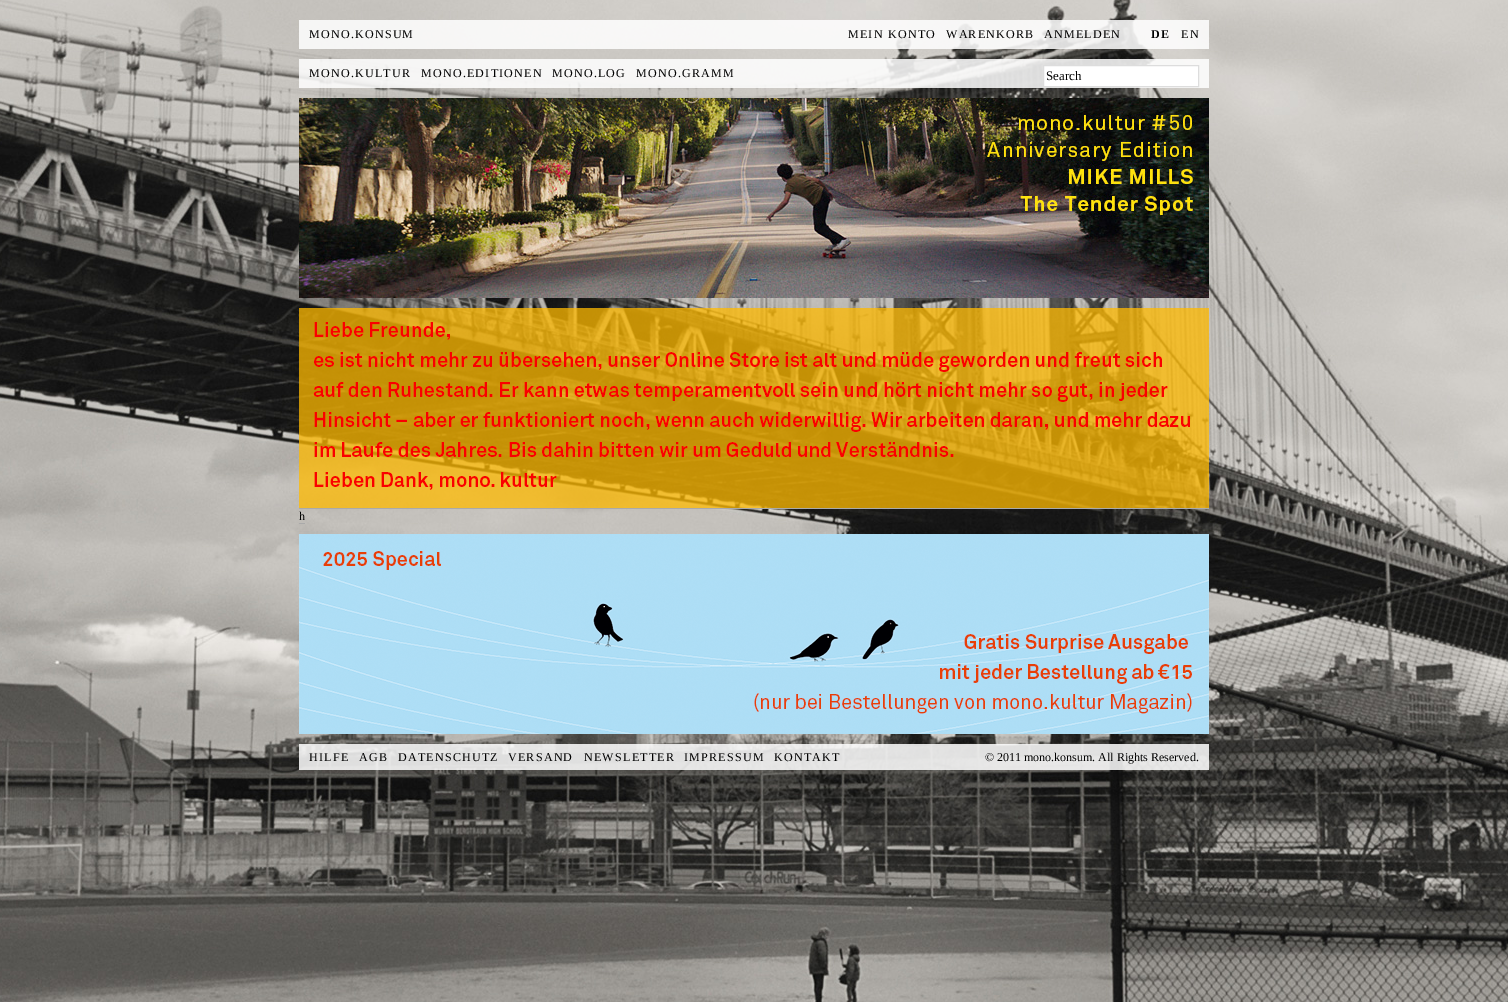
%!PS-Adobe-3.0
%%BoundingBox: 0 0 1508 1002
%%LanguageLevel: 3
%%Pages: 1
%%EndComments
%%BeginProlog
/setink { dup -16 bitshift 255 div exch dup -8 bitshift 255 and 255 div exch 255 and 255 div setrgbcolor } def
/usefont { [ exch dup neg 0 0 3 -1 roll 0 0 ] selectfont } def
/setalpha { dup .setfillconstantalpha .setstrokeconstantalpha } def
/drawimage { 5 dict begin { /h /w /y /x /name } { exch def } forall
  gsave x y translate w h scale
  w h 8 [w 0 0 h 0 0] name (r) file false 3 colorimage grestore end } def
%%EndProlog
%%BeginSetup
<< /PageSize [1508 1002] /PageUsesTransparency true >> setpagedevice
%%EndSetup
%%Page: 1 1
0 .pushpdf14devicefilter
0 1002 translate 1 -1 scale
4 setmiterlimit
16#FFFFFF setink
0 0 1508 1002 rectfill
(img1.raw) 0 0 1508 1002 drawimage
0.85 setalpha
299 20 910 29 rectfill
/LiberationSerif-Regular 12 usefont
1 setalpha
16#000000 setink
309 38 moveto 1.25 0 (MONO.KONSUM) ashow
848 38 moveto 1.25 0 (MEIN KONTO) ashow
946 38 moveto 1.25 0 (WARENKORB) ashow
1044 38 moveto 1.25 0 (ANMELDEN) ashow
/LiberationSerif-Bold 12 usefont
1151 38 moveto 1.25 0 (DE) ashow
/LiberationSerif-Regular 12 usefont
1181 38 moveto 1.25 0 (EN) ashow
0.85 setalpha
16#FFFFFF setink
299 59 910 29 rectfill
1 setalpha
16#000000 setink
309 77 moveto 1.25 0 (MONO.KULTUR) ashow
421 77 moveto 1.25 0 (MONO.EDITIONEN) ashow
552 77 moveto 1.25 0 (MONO.LOG) ashow
636 77 moveto 1.25 0 (MONO.GRAMM) ashow
16#FFFFFF setink
1043.5 65.5 moveto 1198.5 65.5 lineto 1198.5 86.5 lineto 1043.5 86.5 lineto closepath gsave fill grestore
16#DDDDDD setink
stroke
/LiberationSerif-Regular 13 usefont
16#000000 setink
1046 80 moveto (Search) show
(img2.raw) 299 98 910 200 drawimage
(img3.raw) 299 308 910 200 drawimage
/LiberationSerif-Regular 12 usefont
299 520 moveto (h) show
16#AAAAAA setink
299 508 910 1 rectfill
299 523 6 1 rectfill
(img4.raw) 299 534 910 200 drawimage
0.85 setalpha
16#FFFFFF setink
299 744 910 26 rectfill
1 setalpha
16#000000 setink
309 761 moveto 1.25 0 (HILFE) ashow
359 761 moveto 1.25 0 (AGB) ashow
398 761 moveto 1.25 0 (DATENSCHUTZ) ashow
508 761 moveto 1.25 0 (VERSAND) ashow
584 761 moveto 1.25 0 (NEWSLETTER) ashow
684 761 moveto 1.25 0 (IMPRESSUM) ashow
774 761 moveto 1.25 0 (KONTAKT) ashow
985 761 moveto (© 2011 mono.konsum. All Rights Reserved.) show
.poppdf14devicefilter showpage
%%EOF
